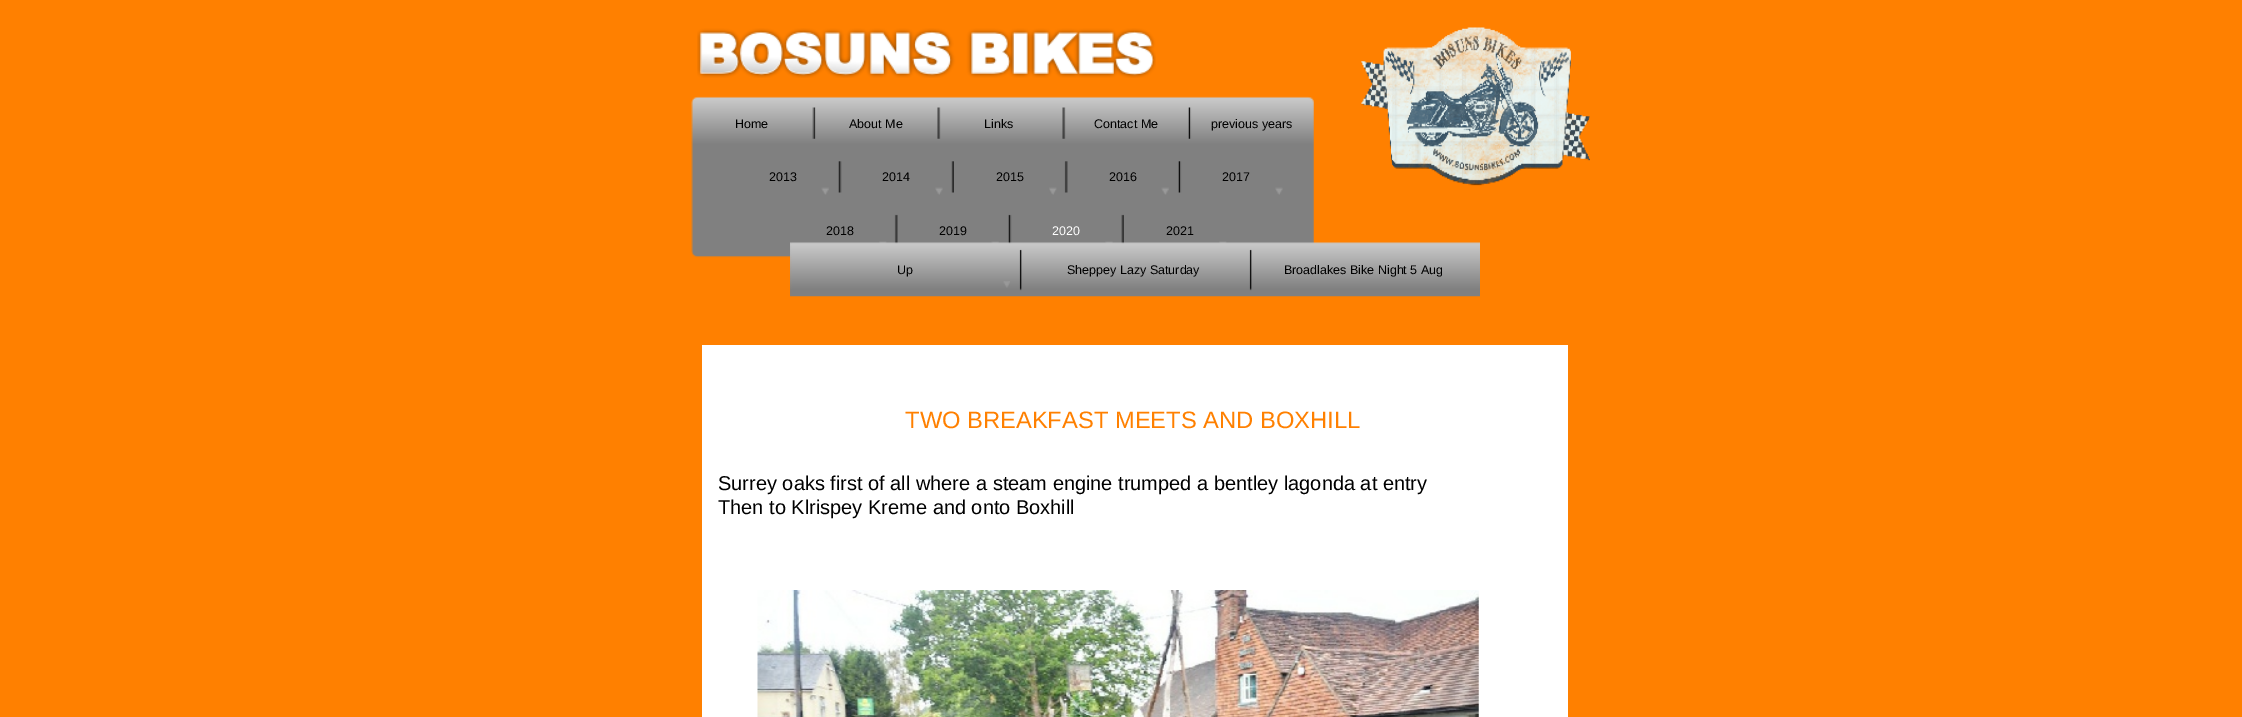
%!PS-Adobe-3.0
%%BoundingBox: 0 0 2242 717
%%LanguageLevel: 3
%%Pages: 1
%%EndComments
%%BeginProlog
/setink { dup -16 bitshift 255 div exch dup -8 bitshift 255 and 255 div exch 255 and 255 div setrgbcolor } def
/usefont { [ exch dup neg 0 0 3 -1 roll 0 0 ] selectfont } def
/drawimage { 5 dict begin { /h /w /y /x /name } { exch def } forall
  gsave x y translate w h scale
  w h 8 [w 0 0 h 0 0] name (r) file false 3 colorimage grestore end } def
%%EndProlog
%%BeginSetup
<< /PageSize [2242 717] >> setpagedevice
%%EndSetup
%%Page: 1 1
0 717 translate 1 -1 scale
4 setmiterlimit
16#FF8000 setink
0 0 2242 717 rectfill
(img1.raw) 697 28 459 50 drawimage
(img2.raw) 1361 27 229 159 drawimage
(img3.raw) 691 96 623 162 drawimage
/LiberationSans-Regular 12.5 usefont
16#000000 setink
[
    [(Home) 735 128]
    [(About Me) 849 128]
    [(Links) 984 128]
    [(Contact Me) 1094 128]
    [(previous years) 1211 128]
] { aload pop moveto show } forall
(img4.raw) 821 187 8 8 drawimage
769 181 moveto (2013) show
(img5.raw) 935 187 8 8 drawimage
882 181 moveto (2014) show
(img6.raw) 1049 187 8 8 drawimage
996 181 moveto (2015) show
(img4.raw) 1161 187 8 8 drawimage
1109 181 moveto (2016) show
(img5.raw) 1275 187 8 8 drawimage
1222 181 moveto (2017) show
(img7.raw) 879 241 8 3 drawimage
826 235 moveto (2018) show
(img8.raw) 991 241 8 3 drawimage
939 235 moveto (2019) show
(img9.raw) 1105 241 8 3 drawimage
16#FFFFFF setink
1052 235 moveto (2020) show
(img7.raw) 1219 241 8 3 drawimage
16#000000 setink
1166 235 moveto (2021) show
(img10.raw) 790 242 690 55 drawimage
(img11.raw) 1003 281 7 7 drawimage
[
    [(Up) 897 274]
    [(Sheppey Lazy Saturday) 1067 274]
    [(Broadlakes Bike Night 5 Aug) 1284 274]
] { aload pop moveto show } forall
16#FFFFFF setink
702 345 866 372 rectfill
/LiberationSans-Regular 23.75 usefont
16#FF8000 setink
905 428 moveto (TWO BREAKFAST MEETS AND BOXHILL) show
/LiberationSans-Regular 20 usefont
16#000000 setink
718 490 moveto (Surrey oaks first of all where a steam engine trumped a bentley lagonda at entry) show
718 514 moveto (Then to Klrispey Kreme and onto Boxhill) show
(img12.raw) 757 590 722 127 drawimage
showpage
%%EOF
